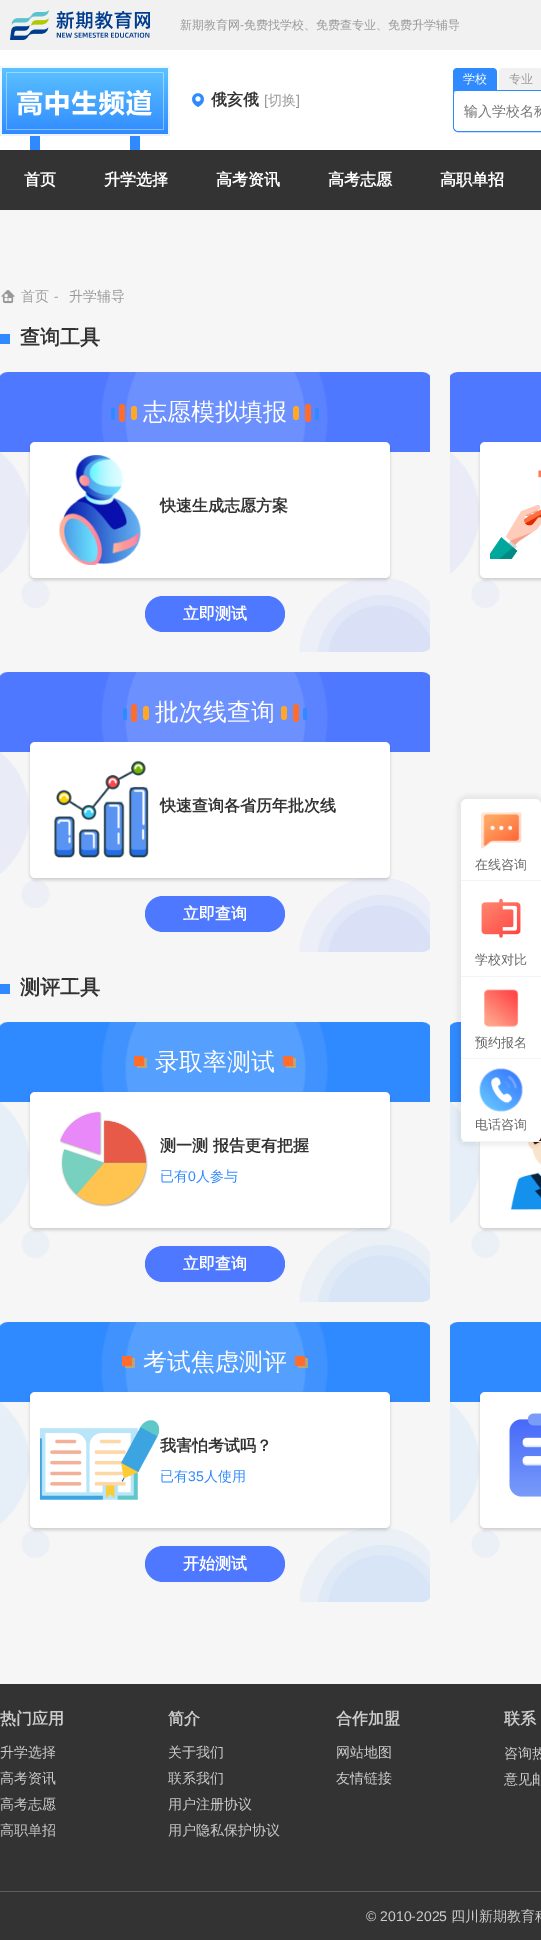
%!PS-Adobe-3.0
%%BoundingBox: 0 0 541 1940
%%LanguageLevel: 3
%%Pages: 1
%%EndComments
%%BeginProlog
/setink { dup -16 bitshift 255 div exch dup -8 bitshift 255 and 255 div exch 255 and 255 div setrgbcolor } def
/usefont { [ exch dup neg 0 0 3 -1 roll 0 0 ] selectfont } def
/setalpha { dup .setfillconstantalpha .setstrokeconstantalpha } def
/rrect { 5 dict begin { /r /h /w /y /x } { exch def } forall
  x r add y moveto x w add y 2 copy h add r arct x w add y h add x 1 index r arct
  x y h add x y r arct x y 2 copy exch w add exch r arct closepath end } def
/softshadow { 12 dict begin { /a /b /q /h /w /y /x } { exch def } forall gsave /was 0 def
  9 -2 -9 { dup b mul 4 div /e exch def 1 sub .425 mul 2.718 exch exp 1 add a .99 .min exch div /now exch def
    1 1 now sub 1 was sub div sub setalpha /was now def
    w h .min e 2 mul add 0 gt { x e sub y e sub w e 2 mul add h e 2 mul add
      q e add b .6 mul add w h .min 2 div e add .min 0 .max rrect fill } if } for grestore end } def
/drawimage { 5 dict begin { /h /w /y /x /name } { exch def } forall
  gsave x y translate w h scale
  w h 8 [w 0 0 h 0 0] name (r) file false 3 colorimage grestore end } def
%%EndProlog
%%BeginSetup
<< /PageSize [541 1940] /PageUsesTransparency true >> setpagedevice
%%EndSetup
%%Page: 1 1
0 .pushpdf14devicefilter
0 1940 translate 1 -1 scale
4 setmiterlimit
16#F6F6F6 setink
0 0 541 1940 rectfill
16#F1F1F1 setink
0 0 541 50 rectfill
(img1.raw) 10 10 140 30 drawimage
/WenQuanYiZenHei-Medium 12 usefont
16#999999 setink
180 29 moveto (新期教育网) show
/LiberationSans-Regular 12 usefont
240 29 moveto (-) show
/WenQuanYiZenHei-Medium 12 usefont
244 29 moveto (免费找学校、免费查专业、免费升学辅导) show
16#FFFFFF setink
0 50 541 100 rectfill
(img2.raw) 0 66 170 84 drawimage
(img3.raw) 192 93 12 14 drawimage
/WenQuanYiZenHei-Bold 16 usefont
16#333333 setink
211 105 moveto (俄亥俄) show
/LiberationSans-Regular 14 usefont
16#999999 setink
264 105 moveto ([) show
/WenQuanYiZenHei-Medium 14 usefont
268 105 moveto (切换) show
/LiberationSans-Regular 14 usefont
296 105 moveto (]) show
16#308AFF setink
457 68 moveto 493 68 lineto 495 68 497 70 497 72 curveto 497 90 lineto 453 90 lineto 453 72 lineto 453 70 455 68 457 68 curveto closepath fill
/WenQuanYiZenHei-Medium 12 usefont
16#FFFFFF setink
463 83 moveto (学校) show
16#F1F1F1 setink
503 68 moveto 539 68 lineto 541 68 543 70 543 72 curveto 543 90 lineto 499 90 lineto 499 72 lineto 499 70 501 68 503 68 curveto closepath fill
16#999999 setink
509 83 moveto (专业) show
16#308AFF setink
453.5 90.5 moveto 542 90.5 lineto 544.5 90.5 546.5 92.5 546.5 95 curveto 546.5 127 lineto 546.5 129.5 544.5 131.5 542 131.5 curveto 458 131.5 lineto 455.5 131.5 453.5 129.5 453.5 127 curveto closepath stroke
16#FFFFFF setink
454 91 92 40 5 rrect fill
/WenQuanYiZenHei-Medium 14 usefont
16#757575 setink
464 116 moveto (输入学校名称) show
16#333333 setink
0 150 541 60 rectfill
/WenQuanYiZenHei-Bold 16 usefont
16#FFFFFF setink
[
    [(首页) 24 185]
    [(升学选择) 104 185]
    [(高考资讯) 216 185]
    [(高考志愿) 328 185]
    [(高职单招) 440 185]
] { aload pop moveto show } forall
(img4.raw) 1 290 14 14 drawimage
/WenQuanYiZenHei-Medium 14 usefont
16#999999 setink
21 301 moveto (首页) show
/LiberationSans-Regular 14 usefont
54 301 moveto (-) show
/WenQuanYiZenHei-Medium 14 usefont
69 301 moveto (升学辅导) show
16#308AFF setink
0 334 10 10 rectfill
/WenQuanYiZenHei-Bold 20 usefont
16#333333 setink
20 344 moveto (查询工具) show
(img5.raw) 0 372 430 280 drawimage
16#308AFF setink
111 408 4 12 2 rrect fill
16#FF6D2C setink
119 404 6 18 3 rrect fill
16#FFA727 setink
131 406 6 14 3 rrect fill
/WenQuanYiZenHei-Medium 24 usefont
16#FFFFFF setink
143 420 moveto (志愿模拟填报) show
16#FFA727 setink
293 406 6 14 3 rrect fill
16#FF6D2C setink
305 404 6 18 3 rrect fill
16#308AFF setink
315 408 4 12 2 rrect fill
16#000000 setink
30 444 360 136 5 1.5 0.16 softshadow
16#FFFFFF setink
30 442 360 136 5 rrect fill
(img6.raw) 59 455 82 110 drawimage
/WenQuanYiZenHei-Bold 16 usefont
16#333333 setink
160 511 moveto (快速生成志愿方案) show
16#4E78FF setink
145 596 140 36 18 rrect fill
16#FFFFFF setink
183 619 moveto (立即测试) show
(img7.raw) 450 372 91 236 drawimage
16#000000 setink
480 444 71 136 5 1.5 0.16 softshadow
16#FFFFFF setink
480 442 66 136 5 rrect fill
(img8.raw) 490 470 51 89 drawimage
(img5.raw) 0 672 430 280 drawimage
16#308AFF setink
123 708 4 12 2 rrect fill
16#FF6D2C setink
131 704 6 18 3 rrect fill
16#FFA727 setink
143 706 6 14 3 rrect fill
/WenQuanYiZenHei-Medium 24 usefont
16#FFFFFF setink
155 720 moveto (批次线查询) show
16#FFA727 setink
281 706 6 14 3 rrect fill
16#FF6D2C setink
293 704 6 18 3 rrect fill
16#308AFF setink
303 708 4 12 2 rrect fill
16#000000 setink
30 744 360 136 5 1.5 0.16 softshadow
16#FFFFFF setink
30 742 360 136 5 rrect fill
(img9.raw) 53 760 96 98 drawimage
/WenQuanYiZenHei-Bold 16 usefont
16#333333 setink
160 811 moveto (快速查询各省历年批次线) show
16#4E78FF setink
145 896 140 36 18 rrect fill
16#FFFFFF setink
183 919 moveto (立即查询) show
16#308AFF setink
0 984 10 10 rectfill
/WenQuanYiZenHei-Bold 20 usefont
16#333333 setink
20 994 moveto (测评工具) show
(img10.raw) 0 1022 430 280 drawimage
16#BBA47D setink
137 1058 10 10 rectfill
16#FF6D2C setink
134 1056 10 10 rectfill
/WenQuanYiZenHei-Medium 24 usefont
16#FFFFFF setink
155 1070 moveto (录取率测试) show
16#BBA47D setink
286 1058 10 10 rectfill
16#FF6D2C setink
283 1056 10 10 rectfill
16#000000 setink
30 1094 360 136 5 1.5 0.16 softshadow
16#FFFFFF setink
30 1092 360 136 5 rrect fill
(img11.raw) 59 1111 89 96 drawimage
/WenQuanYiZenHei-Bold 16 usefont
16#333333 setink
160 1151 moveto (测一测 报告更有把握) show
/WenQuanYiZenHei-Medium 14 usefont
16#308AFF setink
160 1181 moveto (已有) show
/LiberationSans-Regular 14 usefont
188 1181 moveto (0) show
/WenQuanYiZenHei-Medium 14 usefont
196 1181 moveto (人参与) show
16#4E78FF setink
145 1246 140 36 18 rrect fill
/WenQuanYiZenHei-Bold 16 usefont
16#FFFFFF setink
183 1269 moveto (立即查询) show
(img12.raw) 450 1022 50 236 drawimage
16#000000 setink
480 1094 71 136 5 1.5 0.16 softshadow
16#FFFFFF setink
480 1092 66 136 5 rrect fill
(img13.raw) 510 1136 31 74 drawimage
(img10.raw) 0 1322 430 280 drawimage
0.6 setalpha
16#FFA727 setink
125 1358 10 10 rectfill
1 setalpha
16#FF6D2C setink
122 1356 10 10 rectfill
/WenQuanYiZenHei-Medium 24 usefont
16#FFFFFF setink
143 1370 moveto (考试焦虑测评) show
0.6 setalpha
16#FFA727 setink
298 1358 10 10 rectfill
1 setalpha
16#FF6D2C setink
295 1356 10 10 rectfill
16#000000 setink
30 1394 360 136 5 1.5 0.16 softshadow
16#FFFFFF setink
30 1392 360 136 5 rrect fill
(img14.raw) 40 1420 120 80 drawimage
/WenQuanYiZenHei-Bold 16 usefont
16#333333 setink
160 1451 moveto (我害怕考试吗？) show
/WenQuanYiZenHei-Medium 14 usefont
16#308AFF setink
160 1481 moveto (已有) show
/LiberationSans-Regular 14 usefont
188 1481 moveto (35) show
/WenQuanYiZenHei-Medium 14 usefont
204 1481 moveto (人使用) show
16#4E78FF setink
145 1546 140 36 18 rrect fill
/WenQuanYiZenHei-Bold 16 usefont
16#FFFFFF setink
183 1569 moveto (开始测试) show
(img15.raw) 450 1322 91 236 drawimage
16#000000 setink
480 1394 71 136 5 1.5 0.16 softshadow
16#FFFFFF setink
480 1392 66 136 5 rrect fill
(img16.raw) 509 1413 32 84 drawimage
16#000000 setink
457 795 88 351 10 2 0.06 softshadow
16#FFFFFF setink
461 799 80 343 6 rrect fill
16#F4F4F4 setink
461 880 80 1 rectfill
(img17.raw) 481 812 41 37 drawimage
/WenQuanYiZenHei-Medium 13 usefont
16#666666 setink
475 869 moveto (在线咨询) show
16#F4F4F4 setink
461 976 80 1 rectfill
(img18.raw) 481 898 40 40 drawimage
16#666666 setink
475 964 moveto (学校对比) show
16#F4F4F4 setink
461 1058 80 1 rectfill
(img19.raw) 484 989 35 38 drawimage
16#666666 setink
475 1047 moveto (预约报名) show
16#F4F4F4 setink
461 1141 80 1 rectfill
(img20.raw) 479 1068 44 44 drawimage
16#666666 setink
475 1129 moveto (电话咨询) show
16#333333 setink
0 1684 541 207 rectfill
16#5E5E5E setink
0 1891 541 1 rectfill
/WenQuanYiZenHei-Bold 16 usefont
16#CCCCCC setink
0 1724 moveto (热门应用) show
/WenQuanYiZenHei-Medium 14 usefont
[
    [(升学选择) 0 1757]
    [(高考资讯) 0 1783]
    [(高考志愿) 0 1809]
    [(高职单招) 0 1835]
] { aload pop moveto show } forall
/WenQuanYiZenHei-Bold 16 usefont
168 1724 moveto (简介) show
/WenQuanYiZenHei-Medium 14 usefont
[
    [(关于我们) 168 1757]
    [(联系我们) 168 1783]
    [(用户注册协议) 168 1809]
    [(用户隐私保护协议) 168 1835]
] { aload pop moveto show } forall
/WenQuanYiZenHei-Bold 16 usefont
336 1724 moveto (合作加盟) show
/WenQuanYiZenHei-Medium 14 usefont
336 1757 moveto (网站地图) show
336 1783 moveto (友情链接) show
/WenQuanYiZenHei-Bold 16 usefont
504 1724 moveto (联系) show
/WenQuanYiZenHei-Medium 14 usefont
504 1758 moveto (咨询热) show
504 1784 moveto (意见邮) show
16#333333 setink
0 1892 541 48 rectfill
/LiberationSans-Regular 14 usefont
16#CCCCCC setink
366 1921 moveto (© 2010-2025) show
/WenQuanYiZenHei-Medium 14 usefont
451 1921 moveto (四川新期教育科) show
.poppdf14devicefilter showpage
%%EOF
